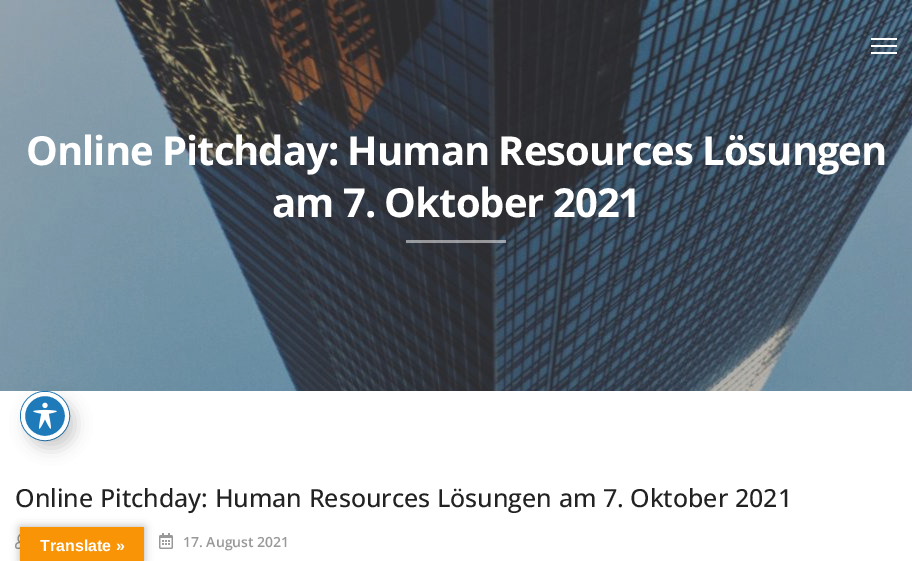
%!PS-Adobe-3.0
%%BoundingBox: 0 0 912 561
%%LanguageLevel: 3
%%Pages: 1
%%EndComments
%%BeginProlog
/setink { dup -16 bitshift 255 div exch dup -8 bitshift 255 and 255 div exch 255 and 255 div setrgbcolor } def
/usefont { [ exch dup neg 0 0 3 -1 roll 0 0 ] selectfont } def
/setalpha { dup .setfillconstantalpha .setstrokeconstantalpha } def
/disc { newpath 0 360 arc closepath } def
/rrect { 5 dict begin { /r /h /w /y /x } { exch def } forall
  x r add y moveto x w add y 2 copy h add r arct x w add y h add x 1 index r arct
  x y h add x y r arct x y 2 copy exch w add exch r arct closepath end } def
/softshadow { 12 dict begin { /a /b /q /h /w /y /x } { exch def } forall gsave /was 0 def
  9 -2 -9 { dup b mul 4 div /e exch def 1 sub .425 mul 2.718 exch exp 1 add a .99 .min exch div /now exch def
    1 1 now sub 1 was sub div sub setalpha /was now def
    w h .min e 2 mul add 0 gt { x e sub y e sub w e 2 mul add h e 2 mul add
      q e add b .6 mul add w h .min 2 div e add .min 0 .max rrect fill } if } for grestore end } def
/drawimage { 5 dict begin { /h /w /y /x /name } { exch def } forall
  gsave x y translate w h scale
  w h 8 [w 0 0 h 0 0] name (r) file false 3 colorimage grestore end } def
%%EndProlog
%%BeginSetup
<< /PageSize [912 561] /PageUsesTransparency true >> setpagedevice
%%EndSetup
%%Page: 1 1
0 .pushpdf14devicefilter
0 561 translate 1 -1 scale
4 setmiterlimit
16#FFFFFF setink
0 0 912 561 rectfill
(img1.raw) 0 0 912 391 drawimage
[
    [871 38 26 2 16#FFFFFF]
    [871 45 26 2 16#FFFFFF]
    [871 52 26 2 16#FFFFFF]
] { aload pop setink rectfill } forall
/OpenSans-Bold 40 usefont
26 165 moveto -1 0 (Online Pitchday: Human Resources Lösungen) ashow
272 217 moveto -1 0 (am 7. Oktober 2021) ashow
0.5 setalpha
406 240 100 3 rectfill
/OpenSans-Medium 25 usefont
1 setalpha
16#222222 setink
15 507 moveto (Online Pitchday: Human Resources Lösungen am 7. Oktober 2021) show
(img2.raw) 15 534 5 15 drawimage
(img3.raw) 159 533 14 16 drawimage
/OpenSans-SemiBold 14 usefont
16#999999 setink
183 547 moveto (17. August 2021) show
16#1E7AB9 setink
45 416 24.5 disc stroke
16#000000 setink
27 400 48 48 24 8 0.2 softshadow
16#1E7AB9 setink
45 416 22 disc gsave fill grestore
16#FFFFFF setink
4 setlinewidth
stroke
(img4.raw) 33 402 24 27 drawimage
16#000000 setink
20 527 124 34 0 4.5 0.3 softshadow
16#F89406 setink
20 527 124 34 rectfill
/LiberationSans-Bold 16 usefont
16#FFFFFF setink
40 551 moveto (Translate ») show
.poppdf14devicefilter showpage
%%EOF
